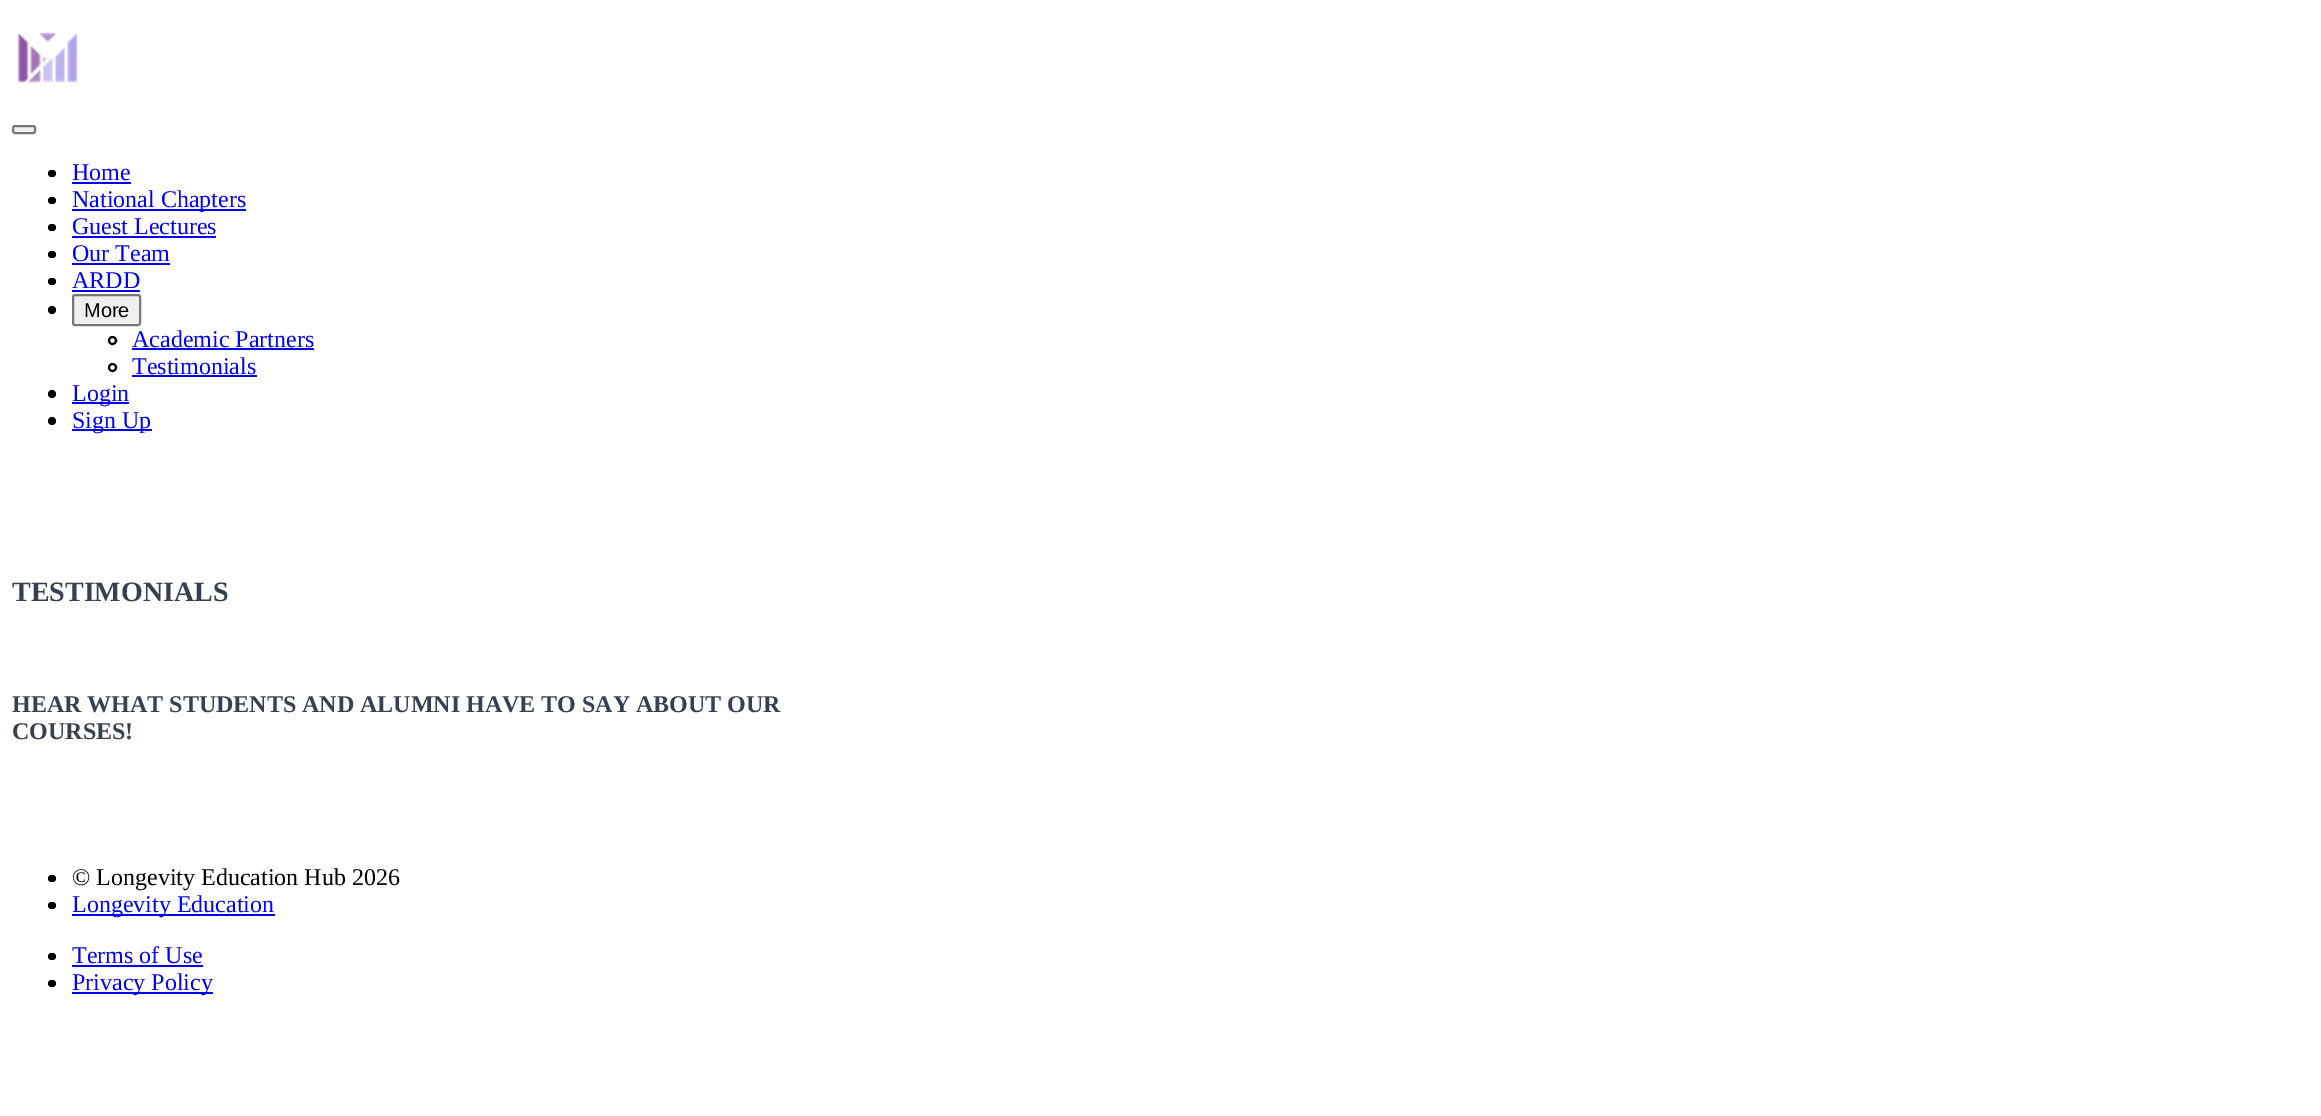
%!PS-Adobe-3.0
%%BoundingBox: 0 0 2321 1116
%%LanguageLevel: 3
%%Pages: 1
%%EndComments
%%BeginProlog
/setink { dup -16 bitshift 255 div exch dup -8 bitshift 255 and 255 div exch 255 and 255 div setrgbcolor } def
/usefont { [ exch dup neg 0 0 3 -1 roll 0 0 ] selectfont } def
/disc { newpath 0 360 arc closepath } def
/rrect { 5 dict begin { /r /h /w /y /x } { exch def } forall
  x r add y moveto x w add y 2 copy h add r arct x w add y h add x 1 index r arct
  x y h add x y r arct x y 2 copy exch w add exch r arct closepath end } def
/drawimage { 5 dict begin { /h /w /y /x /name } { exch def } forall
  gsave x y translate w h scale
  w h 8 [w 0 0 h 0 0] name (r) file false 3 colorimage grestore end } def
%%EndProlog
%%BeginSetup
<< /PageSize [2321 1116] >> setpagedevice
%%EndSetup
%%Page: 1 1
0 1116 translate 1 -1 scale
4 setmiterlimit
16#FFFFFF setink
0 0 2321 1116 rectfill
(img1.raw) 17 32 62 51 drawimage
16#EFEFEF setink
13 126 22 7 2 rrect gsave fill grestore
16#767676 setink
2 setlinewidth
stroke
16#000000 setink
48 170 8 7 3.5 rrect fill
/LiberationSerif-Regular 24 usefont
16#0000EE setink
72 180 moveto (Home) show
72 182 59 2 rectfill
16#000000 setink
48 197 8 7 3.5 rrect fill
16#0000EE setink
72 209 174 2 rectfill
72 207 moveto (National Chapters) show
16#000000 setink
48 224 8 7 3.5 rrect fill
16#0000EE setink
72 234 moveto (Guest Lectures) show
72 236 144 2 rectfill
16#000000 setink
48 251 8 7 3.5 rrect fill
16#0000EE setink
72 261 moveto (Our Team) show
72 263 98 2 rectfill
16#000000 setink
48 278 8 7 3.5 rrect fill
16#0000EE setink
72 288 moveto (ARDD) show
72 290 68 2 rectfill
16#000000 setink
52 310 4 disc fill
16#EFEFEF setink
73 295 67 30 2 rrect gsave fill grestore
16#767676 setink
stroke
/LiberationSans-Regular 20 usefont
16#000000 setink
84 317 moveto (More) show
112.5 340.5 3.5 disc stroke
/LiberationSerif-Regular 24 usefont
16#0000EE setink
132 347 moveto (Academic Partners) show
132 348 182 2 rectfill
16#000000 setink
112.5 367.5 3.5 disc stroke
16#0000EE setink
132 374 moveto (Testimonials) show
132 375 125 2 rectfill
16#000000 setink
52 394 4 disc fill
16#0000EE setink
72 402 57 2 rectfill
72 401 moveto (Login) show
16#000000 setink
52 421 4 disc fill
16#0000EE setink
72 429 80 2 rectfill
72 428 moveto (Sign Up) show
/LiberationSerif-Bold 28 usefont
16#36414D setink
12 601 moveto (TESTIMONIALS) show
/LiberationSerif-Bold 24 usefont
12 712 moveto (HEAR WHAT STUDENTS AND ALUMNI HAVE TO SAY ABOUT OUR) show
12 739 moveto (COURSES!) show
16#000000 setink
48 875 8 7 3.5 rrect fill
/LiberationSerif-Regular 24 usefont
72 885 moveto (© Longevity Education Hub 2026) show
48 902 8 7 3.5 rrect fill
16#0000EE setink
72 914 203 2 rectfill
72 912 moveto (Longevity Education) show
16#000000 setink
48 953 8 7 3.5 rrect fill
16#0000EE setink
72 963 moveto (Terms of Use) show
72 965 131 2 rectfill
16#000000 setink
48 980 8 7 3.5 rrect fill
16#0000EE setink
72 992 141 2 rectfill
72 990 moveto (Privacy Policy) show
showpage
%%EOF
